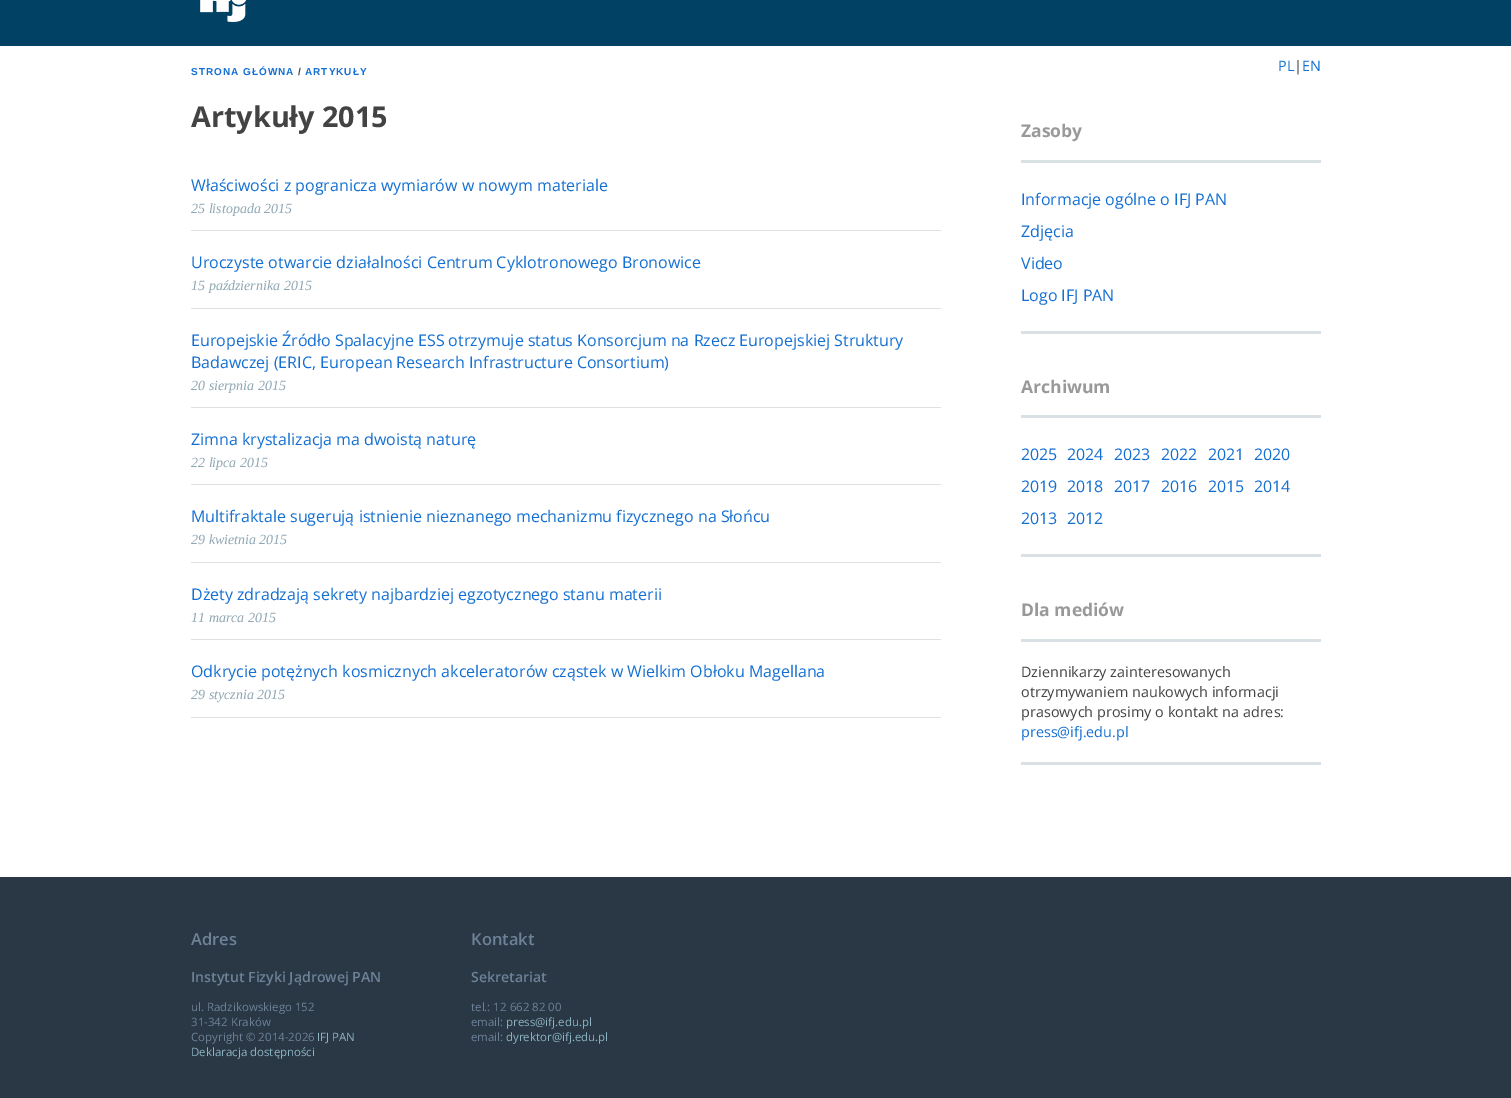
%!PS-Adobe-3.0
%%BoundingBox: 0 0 1511 1098
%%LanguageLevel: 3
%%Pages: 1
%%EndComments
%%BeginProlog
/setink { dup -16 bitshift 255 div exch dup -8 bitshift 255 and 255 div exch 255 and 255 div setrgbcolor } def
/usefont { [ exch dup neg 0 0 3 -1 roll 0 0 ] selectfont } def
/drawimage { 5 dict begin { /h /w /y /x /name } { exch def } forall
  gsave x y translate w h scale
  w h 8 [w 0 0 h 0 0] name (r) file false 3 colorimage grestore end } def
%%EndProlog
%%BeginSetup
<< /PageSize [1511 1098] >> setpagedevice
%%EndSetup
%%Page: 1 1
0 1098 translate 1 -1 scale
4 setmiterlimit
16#FFFFFF setink
0 0 1511 1098 rectfill
16#004164 setink
0 0 1511 46 rectfill
(img1.raw) 200 0 46 22 drawimage
/LiberationSans-Bold 10 usefont
16#136FD2 setink
191 75 moveto 1 0 (STRONA GŁÓWNA) ashow
16#434343 setink
298 75 moveto 1 0 (/) ashow
16#136FD2 setink
305 75 moveto 1 0 (ARTYKUŁY) ashow
/OpenSans-Bold 28.75 usefont
16#434343 setink
191 127 moveto (Artykuły 2015) show
16#E0E0E0 setink
191 230 750 1 rectfill
/OpenSans-Regular 16 usefont
16#136FD2 setink
191 191 moveto (Właściwości z pogranicza wymiarów w nowym materiale) show
/LiberationSerif-Italic 14 usefont
16#8FA6B3 setink
191 213 moveto (25 listopada 2015) show
16#E0E0E0 setink
191 308 750 1 rectfill
/OpenSans-Regular 16 usefont
16#136FD2 setink
191 268 moveto (Uroczyste otwarcie działalności Centrum Cyklotronowego Bronowice) show
/LiberationSerif-Italic 14 usefont
16#8FA6B3 setink
191 290 moveto (15 października 2015) show
16#E0E0E0 setink
191 407 750 1 rectfill
/OpenSans-Regular 16 usefont
16#136FD2 setink
191 346 moveto (Europejskie Źródło Spalacyjne ESS otrzymuje status Konsorcjum na Rzecz Europejskiej Struktury) show
191 368 moveto (Badawczej \(ERIC, European Research Infrastructure Consortium\)) show
/LiberationSerif-Italic 14 usefont
16#8FA6B3 setink
191 390 moveto (20 sierpnia 2015) show
16#E0E0E0 setink
191 484 750 1 rectfill
/OpenSans-Regular 16 usefont
16#136FD2 setink
191 445 moveto (Zimna krystalizacja ma dwoistą naturę) show
/LiberationSerif-Italic 14 usefont
16#8FA6B3 setink
191 467 moveto (22 lipca 2015) show
16#E0E0E0 setink
191 562 750 1 rectfill
/OpenSans-Regular 16 usefont
16#136FD2 setink
191 522 moveto (Multifraktale sugerują istnienie nieznanego mechanizmu fizycznego na Słońcu) show
/LiberationSerif-Italic 14 usefont
16#8FA6B3 setink
191 544 moveto (29 kwietnia 2015) show
16#E0E0E0 setink
191 639 750 1 rectfill
/OpenSans-Regular 16 usefont
16#136FD2 setink
191 600 moveto (Dżety zdradzają sekrety najbardziej egzotycznego stanu materii) show
/LiberationSerif-Italic 14 usefont
16#8FA6B3 setink
191 622 moveto (11 marca 2015) show
16#E0E0E0 setink
191 717 750 1 rectfill
/OpenSans-Regular 16 usefont
16#136FD2 setink
191 677 moveto (Odkrycie potężnych kosmicznych akceleratorów cząstek w Wielkim Obłoku Magellana) show
/LiberationSerif-Italic 14 usefont
16#8FA6B3 setink
191 699 moveto (29 stycznia 2015) show
/OpenSans-Regular 14.4 usefont
16#136FD2 setink
1278 71 moveto (PL) show
16#434343 setink
1294 71 moveto (|) show
16#136FD2 setink
1302 71 moveto (EN) show
/OpenSans-Bold 17.5 usefont
16#999999 setink
1021 137 moveto (Zasoby) show
16#DAE1E5 setink
1021 160 300 3 rectfill
1021 331 300 3 rectfill
/OpenSans-Regular 16 usefont
16#136FD2 setink
[
    [(Informacje ogólne o IFJ PAN) 1021 205]
    [(Zdjęcia) 1021 237]
    [(Video) 1021 269]
    [(Logo IFJ PAN) 1021 301]
] { aload pop moveto show } forall
/OpenSans-Bold 17.5 usefont
16#999999 setink
1021 393 moveto (Archiwum) show
16#DAE1E5 setink
1021 415 300 3 rectfill
1021 554 300 3 rectfill
/OpenSans-Regular 16 usefont
16#136FD2 setink
[
    [(2025) 1021 460]
    [(2024) 1067 460]
    [(2023) 1114 460]
    [(2022) 1161 460]
    [(2021) 1208 460]
    [(2020) 1254 460]
    [(2019) 1021 492]
    [(2018) 1067 492]
    [(2017) 1114 492]
    [(2016) 1161 492]
    [(2015) 1208 492]
    [(2014) 1254 492]
    [(2013) 1021 524]
    [(2012) 1067 524]
] { aload pop moveto show } forall
/OpenSans-Bold 17.5 usefont
16#999999 setink
1021 616 moveto (Dla mediów) show
16#DAE1E5 setink
1021 639 300 3 rectfill
1021 762 300 3 rectfill
/OpenSans-Regular 14.4 usefont
16#434343 setink
[
    [(Dziennikarzy zainteresowanych) 1021 677]
    [(otrzymywaniem naukowych informacji) 1021 697]
    [(prasowych prosimy o kontakt na adres:) 1021 717]
] { aload pop moveto show } forall
16#136FD2 setink
1021 737 moveto (press@ifj.edu.pl) show
16#2A3744 setink
0 877 1511 221 rectfill
/OpenSans-SemiBold 16.5 usefont
16#6D8299 setink
191 945 moveto (Adres) show
/OpenSans-SemiBold 14.1 usefont
191 982 moveto (Instytut Fizyki Jądrowej PAN) show
/OpenSans-Regular 11.5 usefont
[
    [(ul. Radzikowskiego 152) 191 1011]
    [(31-342 Kraków) 191 1026]
    [(Copyright © 2014-2026) 191 1041]
] { aload pop moveto show } forall
16#8DB5C3 setink
317 1041 moveto (IFJ PAN) show
191 1056 moveto (Deklaracja dostępności) show
/OpenSans-SemiBold 16.5 usefont
16#6D8299 setink
471 945 moveto (Kontakt) show
/OpenSans-SemiBold 14.1 usefont
471 982 moveto (Sekretariat) show
/OpenSans-Regular 11.5 usefont
471 1011 moveto (tel.: 12 662 82 00) show
471 1026 moveto (email:) show
16#8DB5C3 setink
506 1026 moveto (press@ifj.edu.pl) show
16#6D8299 setink
471 1041 moveto (email:) show
16#8DB5C3 setink
506 1041 moveto (dyrektor@ifj.edu.pl) show
showpage
%%EOF
